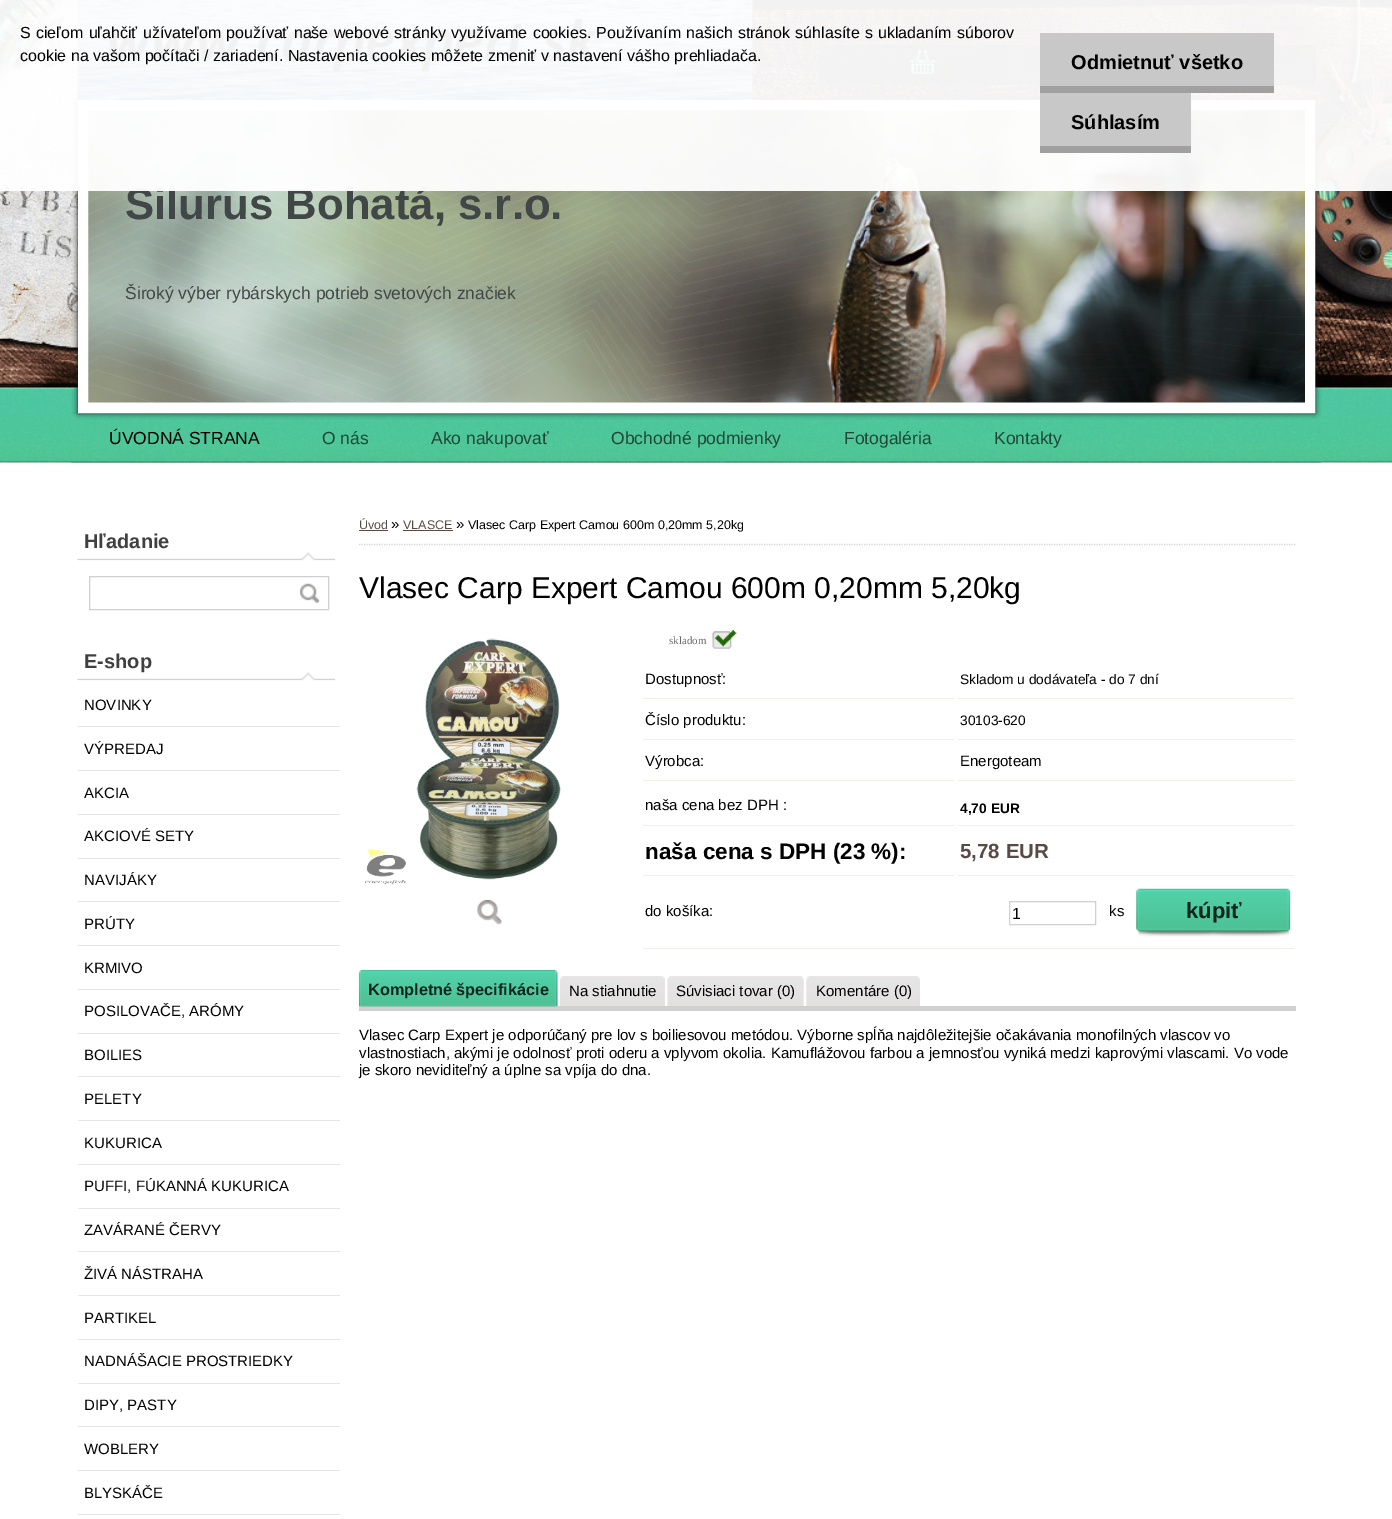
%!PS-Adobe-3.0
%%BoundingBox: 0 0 1392 1519
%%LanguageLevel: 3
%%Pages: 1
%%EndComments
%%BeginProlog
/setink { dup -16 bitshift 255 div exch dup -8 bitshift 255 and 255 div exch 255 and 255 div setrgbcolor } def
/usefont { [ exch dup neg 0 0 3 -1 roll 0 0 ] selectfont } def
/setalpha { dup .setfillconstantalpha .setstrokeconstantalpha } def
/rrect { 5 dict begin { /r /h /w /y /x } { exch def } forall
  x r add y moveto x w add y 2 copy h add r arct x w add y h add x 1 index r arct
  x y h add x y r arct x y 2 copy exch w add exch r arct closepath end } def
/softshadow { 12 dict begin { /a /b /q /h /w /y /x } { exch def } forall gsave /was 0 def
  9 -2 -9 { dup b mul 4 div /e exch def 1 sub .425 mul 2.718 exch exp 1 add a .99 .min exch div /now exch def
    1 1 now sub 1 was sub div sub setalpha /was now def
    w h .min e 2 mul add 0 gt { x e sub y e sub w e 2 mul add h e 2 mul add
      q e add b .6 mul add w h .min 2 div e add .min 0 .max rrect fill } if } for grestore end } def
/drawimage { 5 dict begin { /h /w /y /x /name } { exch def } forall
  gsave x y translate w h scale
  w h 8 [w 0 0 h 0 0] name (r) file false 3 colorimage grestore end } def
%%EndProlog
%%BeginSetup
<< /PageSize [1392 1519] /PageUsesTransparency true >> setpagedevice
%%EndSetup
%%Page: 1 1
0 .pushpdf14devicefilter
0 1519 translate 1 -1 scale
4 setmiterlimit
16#FFFFFF setink
0 0 1392 1519 rectfill
(img1.raw) 0 0 1392 463 drawimage
(img2.raw) 71 4 1251 459 drawimage
(img3.raw) 909 49 27 27 drawimage
16#0D0D0C setink
78 100 1237 313 0 3 1 softshadow
(img4.raw) 88 110 1217 293 drawimage
16#FFFFFF setink
10 setlinewidth
83 105 1227 303 rectstroke
(img5.raw) 77 0 676 100 drawimage
/LiberationSans-Bold 43.75 usefont
16#414746 setink
125 219 moveto (Silurus Bohatá, s.r.o.) show
0.95 setalpha
16#FFFFFF setink
0 0 1392 191 rectfill
/LiberationSans-Regular 16 usefont
1 setalpha
16#000000 setink
20 38 moveto 0.8 0 32 (S cieľom uľahčiť užívateľom používať naše webové stránky využívame cookies. Používaním našich stránok súhlasíte s ukladaním súborov) widthshow
20 61 moveto (cookie na vašom počítači / zariadení. Nastavenia cookies môžete zmeniť v nastavení vášho prehliadača.) show
16#C8C8C8 setink
1040 33 234 53 rectfill
16#A0A0A0 setink
1040 86 234 7 rectfill
/LiberationSans-Bold 20 usefont
16#000000 setink
1071 69 moveto (Odmietnuť všetko) show
16#C8C8C8 setink
1040 93 151 53 rectfill
16#A0A0A0 setink
1040 146 151 7 rectfill
16#000000 setink
1071 129 moveto (Súhlasím) show
/LiberationSans-Regular 17.5 usefont
16#414746 setink
125 299 moveto (Široký výber rybárskych potrieb svetových značiek) show
16#000000 setink
109 444 moveto (ÚVODNÁ STRANA) show
16#214537 setink
[
    [(O nás) 322 444]
    [(Ako nakupovať) 431 444]
    [(Obchodné podmienky) 611 444]
    [(Fotogaléria) 844 444]
    [(Kontakty) 994 444]
] { aload pop moveto show } forall
(img6.raw) 77 552 258 9 drawimage
/LiberationSans-Bold 20 usefont
16#404040 setink
84 548 moveto (Hľadanie) show
16#D0D0D0 setink
1 setlinewidth
89.5 576.5 239 33 rectstroke
(img7.raw) 299 583 21 21 drawimage
(img6.raw) 77 672 258 9 drawimage
16#404040 setink
84 668 moveto (E-shop) show
16#E5E5E6 setink
78 726 262 1 rectfill
/LiberationSans-Regular 15 usefont
16#000000 setink
84 710 moveto (NOVINKY) show
16#E5E5E6 setink
78 770 262 1 rectfill
16#000000 setink
84 754 moveto (VÝPREDAJ) show
16#E5E5E6 setink
78 814 262 1 rectfill
16#000000 setink
84 798 moveto (AKCIA) show
16#E5E5E6 setink
78 858 262 1 rectfill
16#000000 setink
84 841 moveto (AKCIOVÉ SETY) show
16#E5E5E6 setink
78 901 262 1 rectfill
16#000000 setink
84 885 moveto (NAVIJÁKY) show
16#E5E5E6 setink
78 945 262 1 rectfill
16#000000 setink
84 929 moveto (PRÚTY) show
16#E5E5E6 setink
78 989 262 1 rectfill
16#000000 setink
84 973 moveto (KRMIVO) show
16#E5E5E6 setink
78 1033 262 1 rectfill
16#000000 setink
84 1016 moveto (POSILOVAČE, ARÓMY) show
16#E5E5E6 setink
78 1076 262 1 rectfill
16#000000 setink
84 1060 moveto (BOILIES) show
16#E5E5E6 setink
78 1120 262 1 rectfill
16#000000 setink
84 1104 moveto (PELETY) show
16#E5E5E6 setink
78 1164 262 1 rectfill
16#000000 setink
84 1148 moveto (KUKURICA) show
16#E5E5E6 setink
78 1208 262 1 rectfill
16#000000 setink
84 1191 moveto (PUFFI, FÚKANNÁ KUKURICA) show
16#E5E5E6 setink
78 1251 262 1 rectfill
16#000000 setink
84 1235 moveto (ZAVÁRANÉ ČERVY) show
16#E5E5E6 setink
78 1295 262 1 rectfill
16#000000 setink
84 1279 moveto (ŽIVÁ NÁSTRAHA) show
16#E5E5E6 setink
78 1339 262 1 rectfill
16#000000 setink
84 1323 moveto (PARTIKEL) show
16#E5E5E6 setink
78 1383 262 1 rectfill
16#000000 setink
84 1366 moveto (NADNÁŠACIE PROSTRIEDKY) show
16#E5E5E6 setink
78 1426 262 1 rectfill
16#000000 setink
84 1410 moveto (DIPY, PASTY) show
16#E5E5E6 setink
78 1470 262 1 rectfill
16#000000 setink
84 1454 moveto (WOBLERY) show
16#E5E5E6 setink
78 1514 262 1 rectfill
16#000000 setink
84 1498 moveto (BLYSKÁČE) show
16#D3D5DA setink
1.2 setlinewidth
[1.25 1.25] 0 setdash
359 544.5 moveto 1296 544.5 lineto stroke
/LiberationSans-Regular 12.5 usefont
16#584A47 setink
359 529 moveto (Úvod) show
359 530 29 1 rectfill
/LiberationSans-Regular 15 usefont
16#000000 setink
391 529 moveto (») show
/LiberationSans-Regular 12.5 usefont
16#584A47 setink
403 529 moveto (VLASCE) show
403 530 50 1 rectfill
/LiberationSans-Regular 15 usefont
16#000000 setink
456 529 moveto (») show
/LiberationSans-Regular 12.5 usefont
468 529 moveto (Vlasec Carp Expert Camou 600m 0,20mm 5,20kg) show
/LiberationSans-Regular 30 usefont
359 598 moveto (Vlasec Carp Expert Camou 600m 0,20mm 5,20kg) show
(img8.raw) 365 638 196 247 drawimage
(img9.raw) 477 900 25 25 drawimage
(img10.raw) 712 630 25 19 drawimage
/LiberationSerif-Regular 11 usefont
16#6A6A6A setink
669 644 moveto (skladom) show
16#F4EEE9 setink
643 698 312 1 rectfill
/LiberationSans-Regular 15 usefont
16#000000 setink
645 684 moveto (Dostupnosť:) show
16#F4EEE9 setink
958 698 336 1 rectfill
/LiberationSans-Regular 13.75 usefont
16#000000 setink
960 684 moveto (Skladom u dodávateľa - do 7 dní) show
16#F4EEE9 setink
643 739 312 1 rectfill
/LiberationSans-Regular 15 usefont
16#000000 setink
645 725 moveto (Číslo produktu:) show
16#F4EEE9 setink
958 739 336 1 rectfill
/LiberationSans-Regular 13.75 usefont
16#000000 setink
960 725 moveto (30103-620) show
16#F4EEE9 setink
643 780 312 1 rectfill
/LiberationSans-Regular 15 usefont
16#000000 setink
645 766 moveto (Výrobca:) show
16#F4EEE9 setink
958 780 336 1 rectfill
16#000000 setink
960 766 moveto (Energoteam) show
16#F4EEE9 setink
643 825 312 1 rectfill
16#000000 setink
645 810 moveto (naša cena bez DPH :) show
16#F4EEE9 setink
958 825 336 1 rectfill
/LiberationSans-Bold 13.75 usefont
16#000000 setink
960 813 moveto (4,70 EUR) show
16#F4EEE9 setink
643 875 312 1 rectfill
/LiberationSans-Bold 22.5 usefont
16#000000 setink
645 859 moveto (naša cena s DPH \(23 %\):) show
16#F4EEE9 setink
958 875 336 1 rectfill
/LiberationSans-Bold 20.5 usefont
16#584A47 setink
960 858 moveto (5,78 EUR) show
16#F4EEE9 setink
643 948 651 1 rectfill
/LiberationSans-Regular 15 usefont
16#000000 setink
645 916 moveto (do košíka:) show
16#D0D0D0 setink
1 setlinewidth
[] 0 setdash
1009.5 901.5 86 23 rectstroke
/LiberationSans-Regular 16 usefont
16#000000 setink
1012 919 moveto (1) show
/LiberationSans-Regular 15 usefont
1109 916 moveto (ks) show
(img11.raw) 1136 888 155 49 drawimage
/LiberationSans-Bold 22 usefont
16#0E241C setink
1186 918 moveto (kúpiť) show
16#D0D0D0 setink
359 1006 937 5 rectfill
(img12.raw) 358 970 197 37 drawimage
(img13.raw) 361 970 197 37 drawimage
/LiberationSans-Bold 16.25 usefont
16#0E241C setink
368 995 moveto (Kompletné špecifikácie) show
(img14.raw) 560 976 103 30 drawimage
(img15.raw) 562 976 103 30 drawimage
/LiberationSans-Regular 15 usefont
16#000000 setink
569 996 moveto (Na stiahnutie) show
(img16.raw) 667 976 135 30 drawimage
(img17.raw) 670 976 134 30 drawimage
676 996 moveto (Súvisiaci tovar \(0\)) show
(img18.raw) 806 976 112 30 drawimage
(img19.raw) 809 976 111 30 drawimage
[
    [(Komentáre \(0\)) 816 996]
    [(Vlasec Carp Expert je odporúčaný pre lov s boiliesovou metódou. Výborne spĺňa najdôležitejšie očakávania monofilných vlascov vo) 359 1040]
    [(vlastnostiach, akými je odolnosť proti oderu a vplyvom okolia. Kamuflážovou farbou a jemnosťou vyniká medzi kaprovými vlascami. Vo vode) 359 1058]
    [(je skoro neviditeľný a úplne sa vpíja do dna.) 359 1075]
] { aload pop moveto show } forall
.poppdf14devicefilter showpage
%%EOF
